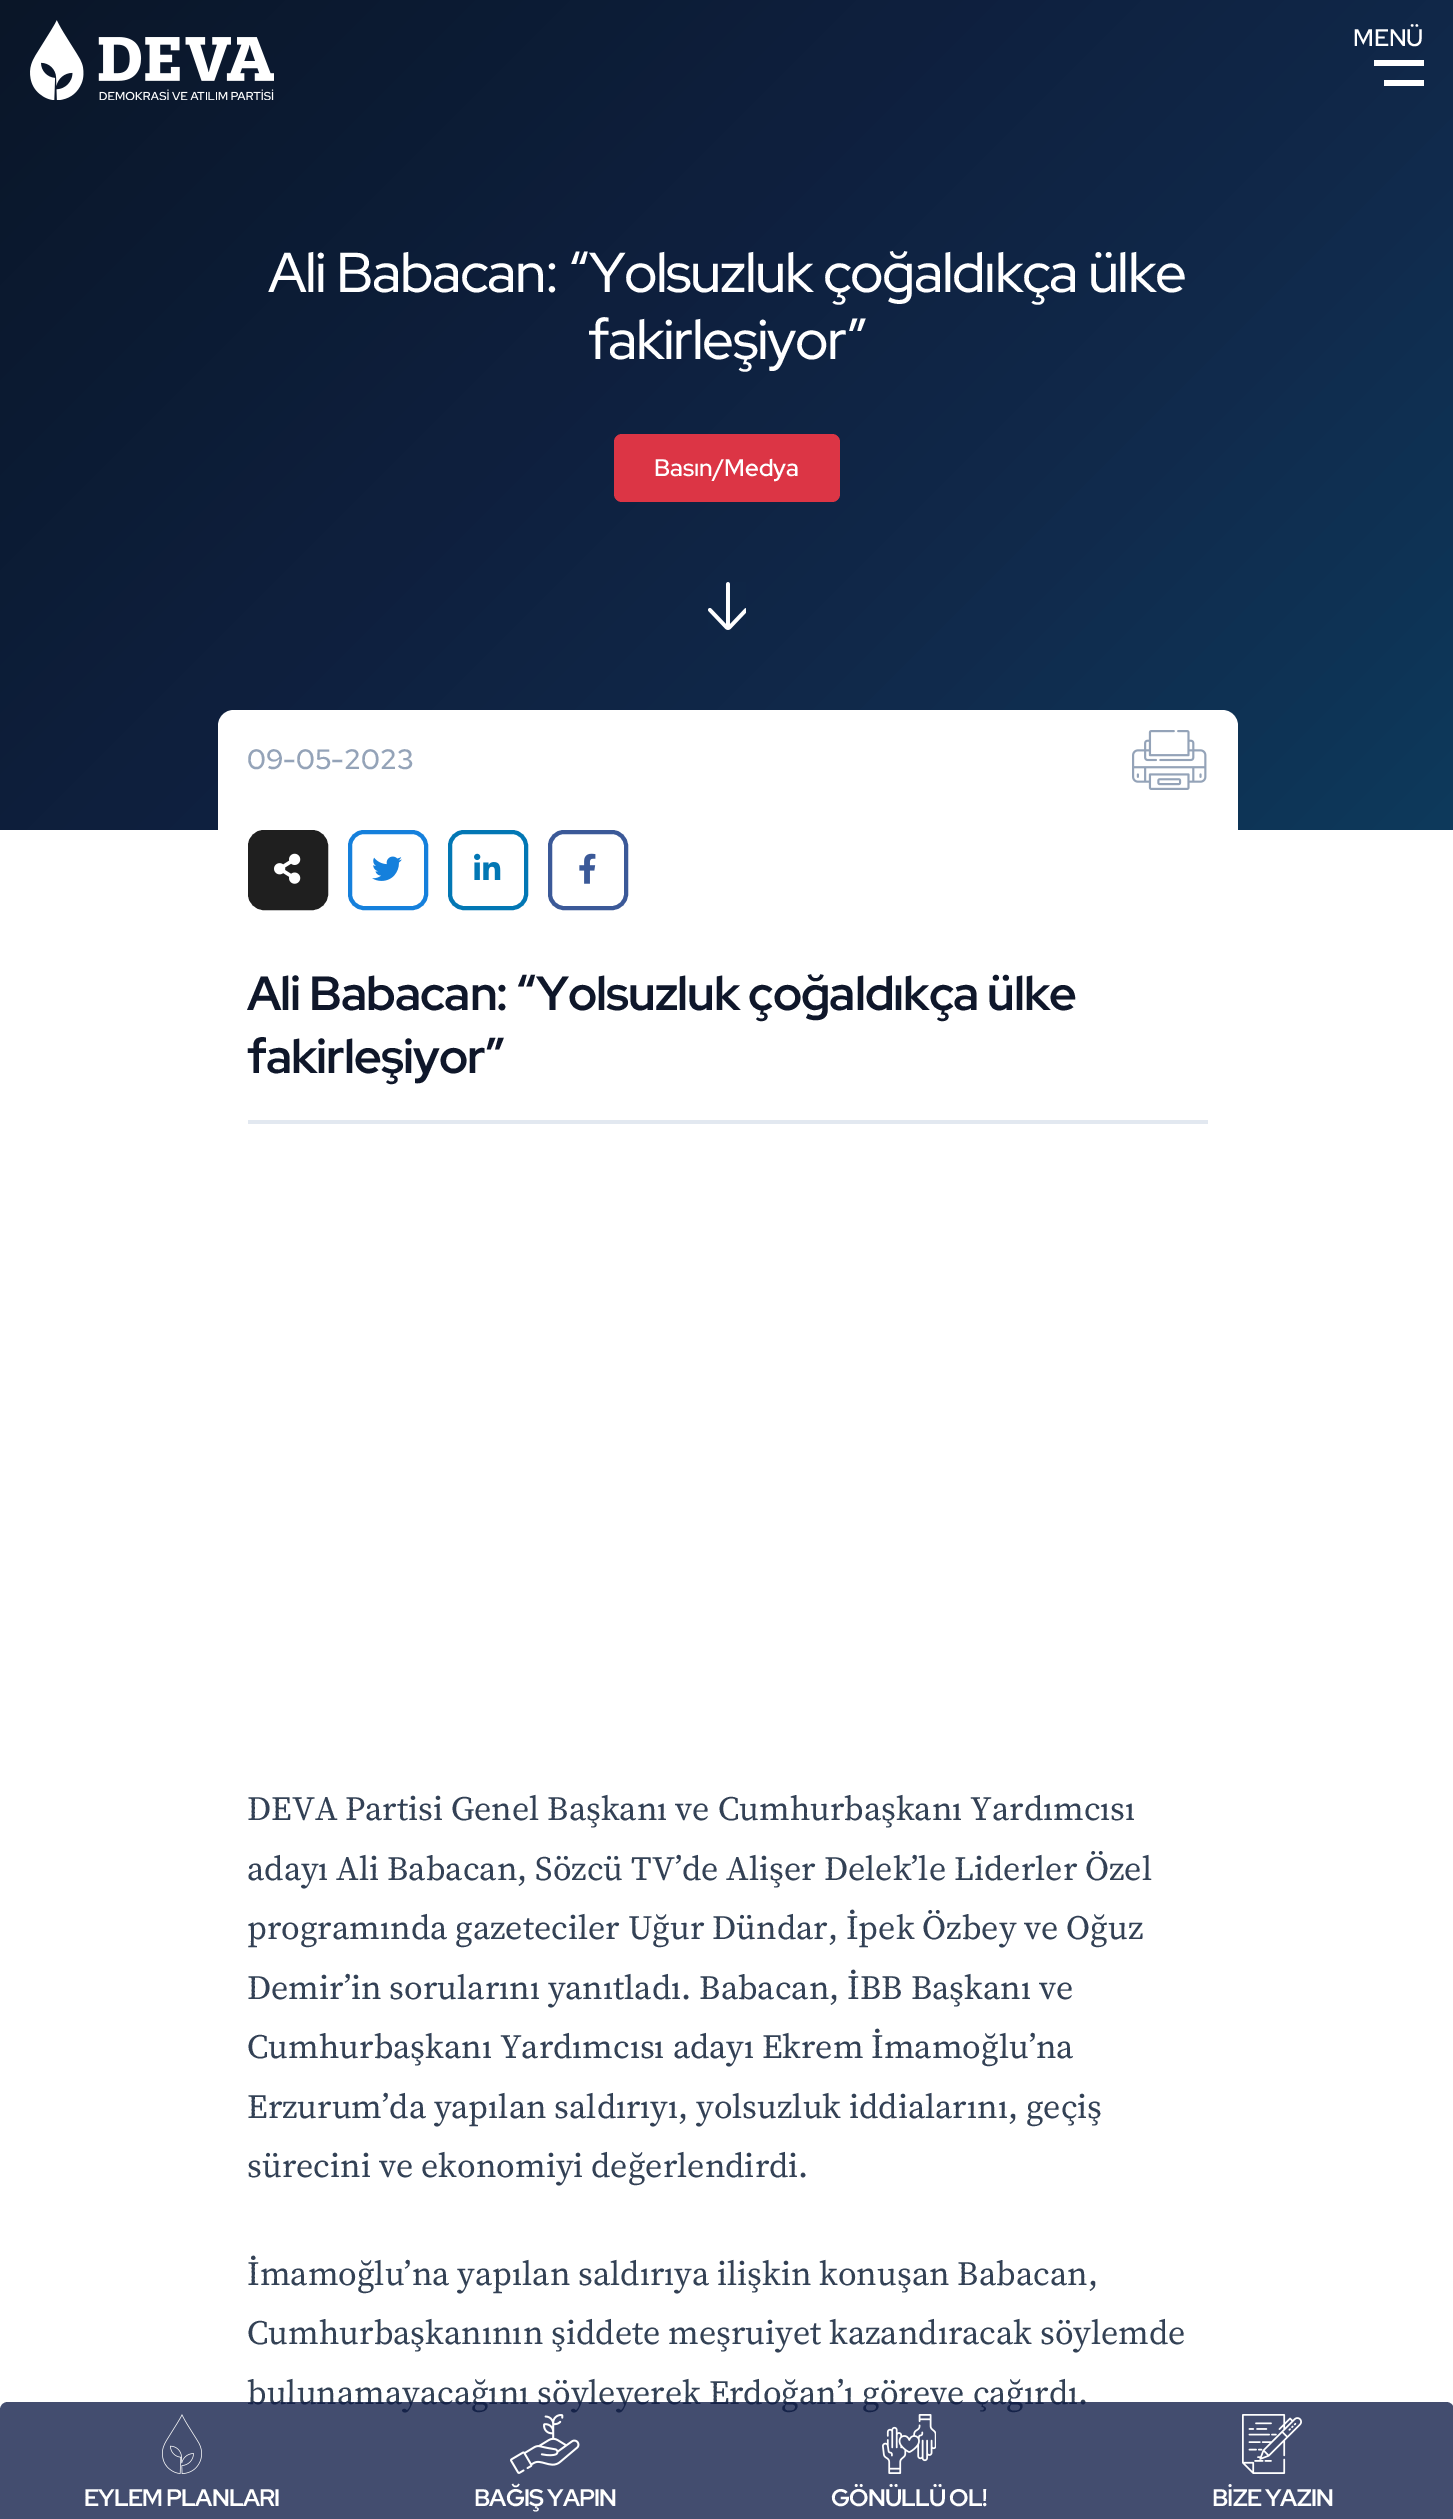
%!PS-Adobe-3.0
%%BoundingBox: 0 0 1453 2519
%%LanguageLevel: 3
%%Pages: 1
%%EndComments
%%BeginProlog
/setink { dup -16 bitshift 255 div exch dup -8 bitshift 255 and 255 div exch 255 and 255 div setrgbcolor } def
/usefont { [ exch dup neg 0 0 3 -1 roll 0 0 ] selectfont } def
/setalpha { dup .setfillconstantalpha .setstrokeconstantalpha } def
/rrect { 5 dict begin { /r /h /w /y /x } { exch def } forall
  x r add y moveto x w add y 2 copy h add r arct x w add y h add x 1 index r arct
  x y h add x y r arct x y 2 copy exch w add exch r arct closepath end } def
/drawimage { 5 dict begin { /h /w /y /x /name } { exch def } forall
  gsave x y translate w h scale
  w h 8 [w 0 0 h 0 0] name (r) file false 3 colorimage grestore end } def
%%EndProlog
%%BeginSetup
<< /PageSize [1453 2519] /PageUsesTransparency true >> setpagedevice
%%EndSetup
%%Page: 1 1
0 .pushpdf14devicefilter
0 2519 translate 1 -1 scale
4 setmiterlimit
16#FFFFFF setink
0 0 1453 2519 rectfill
gsave 0 0 moveto 1453 0 lineto 1453 830 lineto 0 830 lineto closepath clip newpath
<< /ShadingType 2 /ColorSpace /DeviceRGB /Coords [156 -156 1298 986] /Extend [true true] /Function << /FunctionType 3 /Domain [0 1] /Functions [<< /FunctionType 2 /Domain [0 1] /C0 [0.039 0.086 0.157] /C1 [0.055 0.122 0.239] /N 1 >> << /FunctionType 2 /Domain [0 1] /C0 [0.055 0.122 0.239] /C1 [0.063 0.165 0.298] /N 1 >> << /FunctionType 2 /Domain [0 1] /C0 [0.063 0.165 0.298] /C1 [0.051 0.227 0.361] /N 1 >>] /Bounds [0.4 0.7] /Encode [0 1 0 1 0 1] >> >> shfill grestore
(img1.raw) 30 20 244 80 drawimage
/RedHatDisplay-SemiBold 24 usefont
1353 46 moveto (MENÜ) show
1374 60 50 6 rectfill
1384 80 40 6 rectfill
234 710 moveto 1222 710 lineto 1231 710 1238 717 1238 726 curveto 1238 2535 lineto 218 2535 lineto 218 726 lineto 218 717 225 710 234 710 curveto closepath fill
/SourceSerif4-Regular 34 usefont
16#334155 setink
247 2404 moveto (bulunamayacağını söyleyerek Erdoğan’ı göreve çağırdı.) show
0.78 setalpha
16#0E1B46 setink
8 2402 moveto 1446 2402 lineto 1450.5 2402 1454 2405.5 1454 2410 curveto 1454 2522 lineto 0 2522 lineto 0 2410 lineto 0 2405.5 3.5 2402 8 2402 curveto closepath fill
1 setalpha
(img2.raw) 162 2414 40 60 drawimage
/RedHatDisplay-Bold 24 usefont
16#FFFFFF setink
84 2506 moveto -0.9 0 (EYLEM PLANLARI) ashow
(img3.raw) 510 2414 70 60 drawimage
474 2506 moveto -0.9 0 (BAĞIŞ YAPIN) ashow
(img4.raw) 882 2414 54 60 drawimage
831 2506 moveto -0.9 0 (GÖNÜLLÜ OL!) ashow
(img5.raw) 1242 2414 60 60 drawimage
1212 2506 moveto -0.9 0 (BİZE YAZIN) ashow
/RedHatDisplay-Medium 56 usefont
268 292 moveto -1.4 0 (Ali Babacan: “Yolsuzluk çoğaldıkça ülke) ashow
588 359 moveto -1.4 0 (fakirleşiyor”) ashow
16#DC3545 setink
614 434 226 68 8 rrect fill
/RedHatDisplay-SemiBold 24 usefont
16#FFFFFF setink
654 476 moveto (Basın/Medya) show
(img6.raw) 708 582 38 48 drawimage
/RedHatDisplay-SemiBold 28 usefont
16#94A3B8 setink
247 769 moveto (09-05-2023) show
(img7.raw) 1132 730 75 60 drawimage
16#1F1F1F setink
250 832 76 76 14 rrect gsave fill grestore
4 setlinewidth
stroke
(img8.raw) 274 853 27 31 drawimage
16#1580DC setink
350 832 76 76 14 rrect stroke
(img9.raw) 372 856 30 25 drawimage
16#0277B4 setink
450 832 76 76 14 rrect stroke
(img10.raw) 474 853 27 27 drawimage
16#3B5998 setink
550 832 76 76 14 rrect stroke
(img11.raw) 579 853 17 31 drawimage
16#E2E8F0 setink
248 1120 960 4 rectfill
/RedHatDisplay-Bold 48 usefont
16#0F172A setink
247 1010 moveto -0.95 0 (Ali Babacan: “Yolsuzluk çoğaldıkça ülke) ashow
247 1073 moveto -0.95 0 (fakirleşiyor”) ashow
/SourceSerif4-Regular 34 usefont
16#334155 setink
[
    [(DEVA Partisi Genel Başkanı ve Cumhurbaşkanı Yardımcısı) 247 1820]
    [(adayı Ali Babacan, Sözcü TV’de Alişer Delek’le Liderler Özel) 247 1880]
    [(programında gazeteciler Uğur Dündar, İpek Özbey ve Oğuz) 247 1939]
    [(Demir’in sorularını yanıtladı. Babacan, İBB Başkanı ve) 247 1999]
    [(Cumhurbaşkanı Yardımcısı adayı Ekrem İmamoğlu’na) 247 2058]
    [(Erzurum’da yapılan saldırıyı, yolsuzluk iddialarını, geçiş) 247 2118]
    [(sürecini ve ekonomiyi değerlendirdi.) 247 2177]
    [(İmamoğlu’na yapılan saldırıya ilişkin konuşan Babacan,) 247 2285]
    [(Cumhurbaşkanının şiddete meşruiyet kazandıracak söylemde) 247 2344]
] { aload pop moveto show } forall
.poppdf14devicefilter showpage
%%EOF
